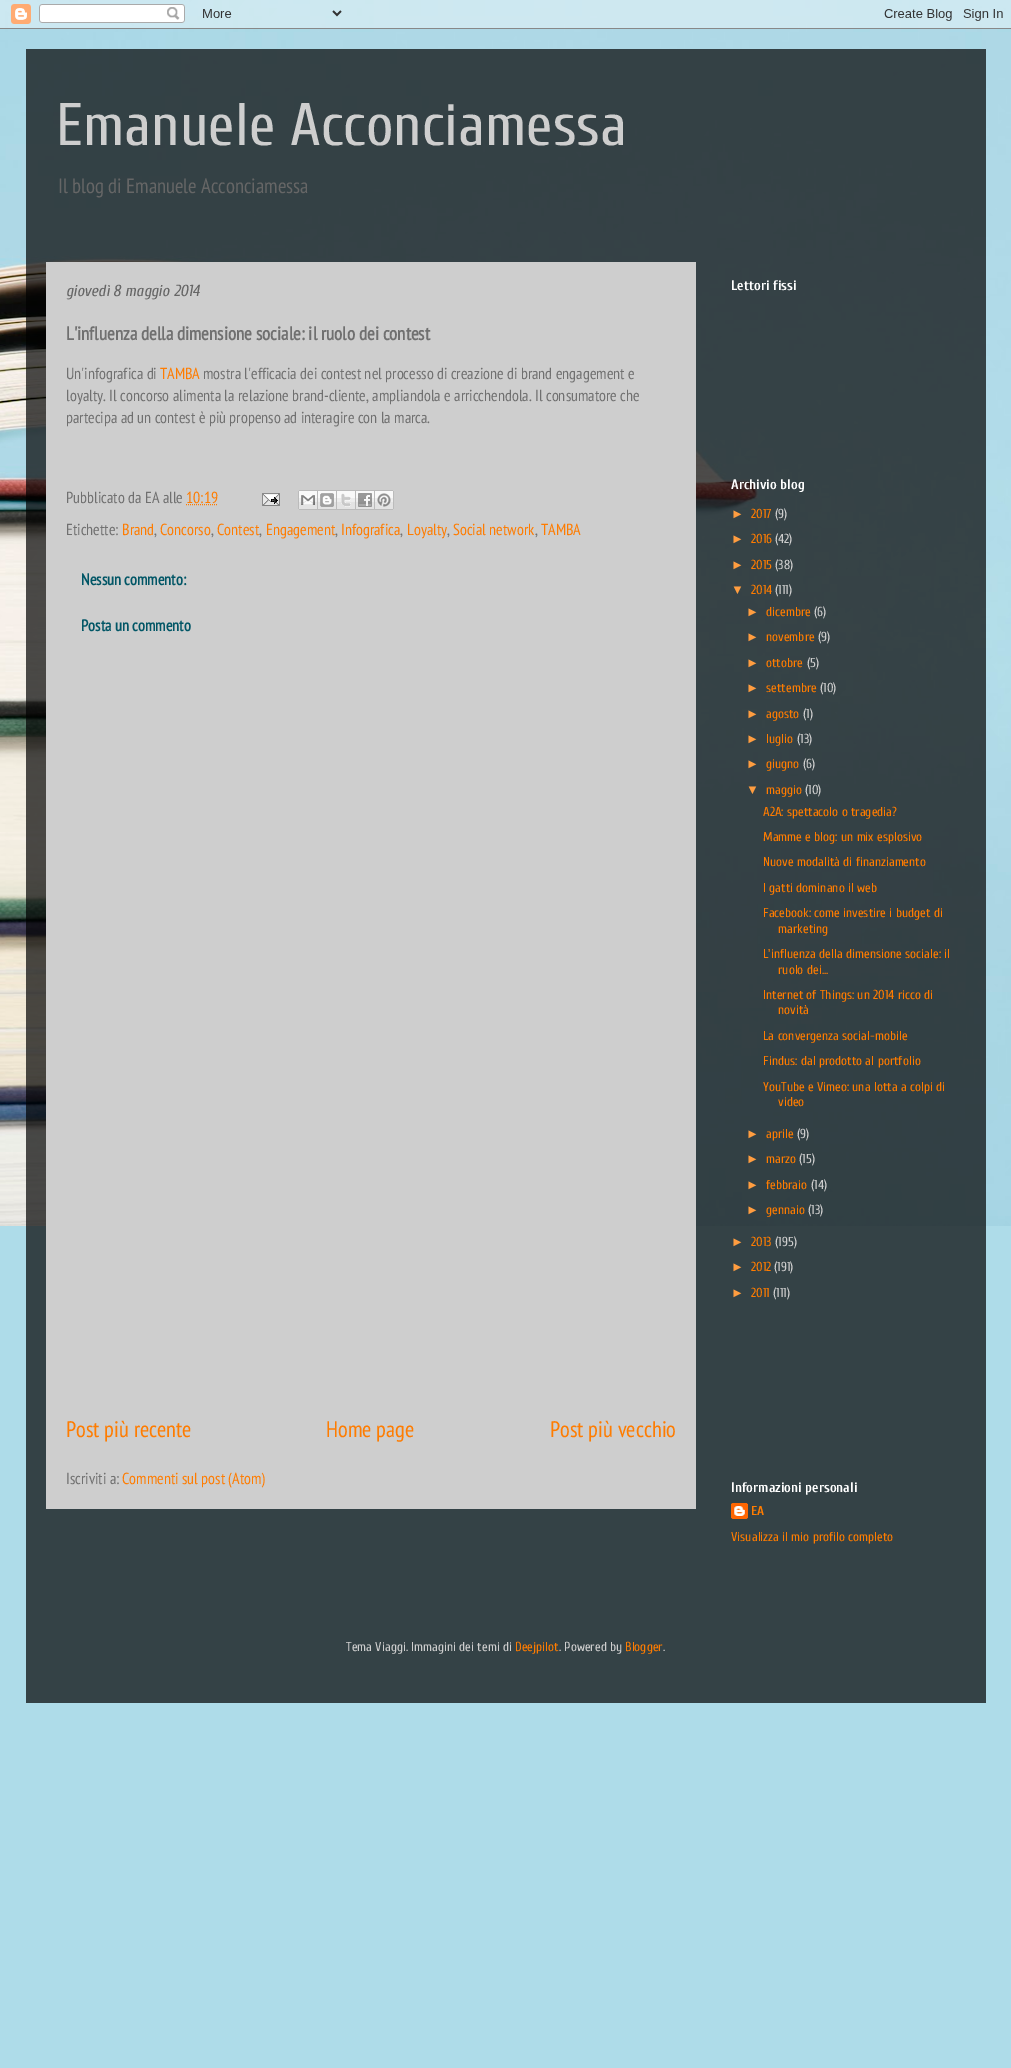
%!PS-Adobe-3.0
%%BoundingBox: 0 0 1011 2068
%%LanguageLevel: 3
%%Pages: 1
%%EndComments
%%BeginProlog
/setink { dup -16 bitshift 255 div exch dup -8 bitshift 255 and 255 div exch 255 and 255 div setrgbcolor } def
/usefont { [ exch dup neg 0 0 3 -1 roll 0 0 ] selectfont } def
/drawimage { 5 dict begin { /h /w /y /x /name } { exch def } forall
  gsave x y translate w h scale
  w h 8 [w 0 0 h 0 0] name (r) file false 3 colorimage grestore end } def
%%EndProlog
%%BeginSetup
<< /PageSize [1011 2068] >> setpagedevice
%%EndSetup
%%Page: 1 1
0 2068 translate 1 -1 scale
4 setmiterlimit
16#AEDCE9 setink
0 0 1011 2068 rectfill
16#344246 setink
26 1226 960 477 rectfill
(img1.raw) 0 0 1011 1226 drawimage
(img2.raw) 0 0 1011 29 drawimage
/Cuprum-Regular 60 usefont
16#CECECE setink
56 145 moveto (Emanuele Acconciamessa) show
/PTSansNarrow-Regular 20.75 usefont
16#666666 setink
58 193 moveto (Il blog di Emanuele Acconciamessa) show
16#CECECE setink
46 262 650 1247 rectfill
/Cuprum-Italic 16 usefont
16#666666 setink
66 296 moveto (giovedì 8 maggio 2014) show
/PTSansNarrow-Bold 18.75 usefont
16#707070 setink
66 340 moveto (L'influenza della dimensione sociale: il ruolo dei contest) show
/PTSansNarrow-Regular 16 usefont
66 379 moveto (Un'infografica di) show
16#FF7C00 setink
160 379 moveto (TAMBA) show
16#707070 setink
[
    [(mostra l'efficacia dei contest nel processo di creazione di brand engagement e) 203 379]
    [(loyalty. Il concorso alimenta la relazione brand-cliente, ampliandola e arricchendola. Il consumatore che) 66 401]
    [(partecipa ad un contest è più propenso ad interagire con la marca.) 66 423]
    [(Pubblicato da EA alle) 66 503]
] { aload pop moveto show } forall
16#FF7C00 setink
186 503 moveto (10:19) show
[1 1] 0 setdash
186 504.5 moveto 218 504.5 lineto stroke
(img3.raw) 262 493 18 13 drawimage
(img4.raw) 298 490 20 20 drawimage
(img5.raw) 318 490 19 20 drawimage
(img6.raw) 337 490 19 20 drawimage
(img7.raw) 356 490 19 20 drawimage
(img8.raw) 375 490 19 20 drawimage
16#707070 setink
66 535 moveto (Etichette:) show
16#FF7C00 setink
122 535 moveto (Brand) show
16#707070 setink
154 535 moveto (,) show
16#FF7C00 setink
160 535 moveto (Concorso) show
16#707070 setink
211 535 moveto (,) show
16#FF7C00 setink
217 535 moveto (Contest) show
16#707070 setink
259 535 moveto (,) show
16#FF7C00 setink
266 535 moveto (Engagement) show
16#707070 setink
335 535 moveto (,) show
16#FF7C00 setink
341 535 moveto (Infografica) show
16#707070 setink
400 535 moveto (,) show
16#FF7C00 setink
407 535 moveto (Loyalty) show
16#707070 setink
447 535 moveto (,) show
16#FF7C00 setink
453 535 moveto (Social network) show
16#707070 setink
535 535 moveto (,) show
16#FF7C00 setink
541 535 moveto (TAMBA) show
/PTSansNarrow-Bold 16 usefont
16#015666 setink
81 585 moveto (Nessun commento:) show
81 631 moveto (Posta un commento) show
/PTSansNarrow-Regular 22.5 usefont
16#FF7C00 setink
[
    [(Post più recente) 66 1437]
    [(Home page) 326 1437]
    [(Post più vecchio) 550 1437]
] { aload pop moveto show } forall
/PTSansNarrow-Regular 16 usefont
16#707070 setink
66 1484 moveto (Iscriviti a:) show
16#FF7C00 setink
122 1484 moveto (Commenti sul post \(Atom\)) show
/Cuprum-Bold 14 usefont
16#FFFFFF setink
731 290 moveto (Lettori fissi) show
731 489 moveto (Archivio blog) show
/LiberationSans-Regular 13 usefont
16#FF9D40 setink
731 518 moveto (►) show
/Cuprum-Regular 13 usefont
16#FF7C00 setink
751 518 moveto (2017) show
16#CECECE setink
775 518 moveto (\(9\)) show
/LiberationSans-Regular 13 usefont
16#FF9D40 setink
731 543 moveto (►) show
/Cuprum-Regular 13 usefont
16#FF7C00 setink
751 543 moveto (2016) show
16#CECECE setink
775 543 moveto (\(42\)) show
/LiberationSans-Regular 13 usefont
16#FF9D40 setink
731 569 moveto (►) show
/Cuprum-Regular 13 usefont
16#FF7C00 setink
751 569 moveto (2015) show
16#CECECE setink
775 569 moveto (\(38\)) show
/LiberationSans-Regular 13 usefont
16#FF9D40 setink
731 594 moveto (▼) show
/Cuprum-Regular 13 usefont
16#FF7C00 setink
751 594 moveto (2014) show
16#CECECE setink
775 594 moveto (\(111\)) show
/LiberationSans-Regular 13 usefont
16#FF9D40 setink
746 616 moveto (►) show
/Cuprum-Regular 13 usefont
16#FF7C00 setink
766 616 moveto (dicembre) show
16#CECECE setink
814 616 moveto (\(6\)) show
/LiberationSans-Regular 13 usefont
16#FF9D40 setink
746 641 moveto (►) show
/Cuprum-Regular 13 usefont
16#FF7C00 setink
766 641 moveto (novembre) show
16#CECECE setink
818 641 moveto (\(9\)) show
/LiberationSans-Regular 13 usefont
16#FF9D40 setink
746 667 moveto (►) show
/Cuprum-Regular 13 usefont
16#FF7C00 setink
766 667 moveto (ottobre) show
16#CECECE setink
807 667 moveto (\(5\)) show
/LiberationSans-Regular 13 usefont
16#FF9D40 setink
746 692 moveto (►) show
/Cuprum-Regular 13 usefont
16#FF7C00 setink
766 692 moveto (settembre) show
16#CECECE setink
820 692 moveto (\(10\)) show
/LiberationSans-Regular 13 usefont
16#FF9D40 setink
746 718 moveto (►) show
/Cuprum-Regular 13 usefont
16#FF7C00 setink
766 718 moveto (agosto) show
16#CECECE setink
803 718 moveto (\(1\)) show
/LiberationSans-Regular 13 usefont
16#FF9D40 setink
746 743 moveto (►) show
/Cuprum-Regular 13 usefont
16#FF7C00 setink
766 743 moveto (luglio) show
16#CECECE setink
797 743 moveto (\(13\)) show
/LiberationSans-Regular 13 usefont
16#FF9D40 setink
746 768 moveto (►) show
/Cuprum-Regular 13 usefont
16#FF7C00 setink
766 768 moveto (giugno) show
16#CECECE setink
803 768 moveto (\(6\)) show
/LiberationSans-Regular 13 usefont
16#FF9D40 setink
746 794 moveto (▼) show
/Cuprum-Regular 13 usefont
16#FF7C00 setink
766 794 moveto (maggio) show
16#CECECE setink
805 794 moveto (\(10\)) show
16#FF7C00 setink
[
    [(A2A: spettacolo o tragedia?) 763 816]
    [(Mamme e blog: un mix esplosivo) 763 841]
    [(Nuove modalità di finanziamento) 763 866]
    [(I gatti dominano il web) 763 892]
    [(Facebook: come investire i budget di) 763 917]
    [(marketing) 778 933]
    [(L'influenza della dimensione sociale: il) 763 958]
    [(ruolo dei...) 778 974]
    [(Internet of Things: un 2014 ricco di) 763 999]
    [(novità) 778 1014]
    [(La convergenza social-mobile) 763 1040]
    [(Findus: dal prodotto al portfolio) 763 1065]
    [(YouTube e Vimeo: una lotta a colpi di) 763 1091]
    [(video) 778 1106]
] { aload pop moveto show } forall
/LiberationSans-Regular 13 usefont
16#FF9D40 setink
746 1138 moveto (►) show
/Cuprum-Regular 13 usefont
16#FF7C00 setink
766 1138 moveto (aprile) show
16#CECECE setink
797 1138 moveto (\(9\)) show
/LiberationSans-Regular 13 usefont
16#FF9D40 setink
746 1163 moveto (►) show
/Cuprum-Regular 13 usefont
16#FF7C00 setink
766 1163 moveto (marzo) show
16#CECECE setink
799 1163 moveto (\(15\)) show
/LiberationSans-Regular 13 usefont
16#FF9D40 setink
746 1189 moveto (►) show
/Cuprum-Regular 13 usefont
16#FF7C00 setink
766 1189 moveto (febbraio) show
16#CECECE setink
811 1189 moveto (\(14\)) show
/LiberationSans-Regular 13 usefont
16#FF9D40 setink
746 1214 moveto (►) show
/Cuprum-Regular 13 usefont
16#FF7C00 setink
766 1214 moveto (gennaio) show
16#CECECE setink
808 1214 moveto (\(13\)) show
/LiberationSans-Regular 13 usefont
16#FF9D40 setink
731 1246 moveto (►) show
/Cuprum-Regular 13 usefont
16#FF7C00 setink
751 1246 moveto (2013) show
16#CECECE setink
775 1246 moveto (\(195\)) show
/LiberationSans-Regular 13 usefont
16#FF9D40 setink
731 1271 moveto (►) show
/Cuprum-Regular 13 usefont
16#FF7C00 setink
751 1271 moveto (2012) show
16#CECECE setink
774 1271 moveto (\(191\)) show
/LiberationSans-Regular 13 usefont
16#FF9D40 setink
731 1297 moveto (►) show
/Cuprum-Regular 13 usefont
16#FF7C00 setink
751 1297 moveto (2011) show
16#CECECE setink
773 1297 moveto (\(111\)) show
/Cuprum-Bold 14 usefont
16#FFFFFF setink
731 1492 moveto (Informazioni personali) show
(img9.raw) 731 1503 17 16 drawimage
/Cuprum-Bold 13 usefont
16#FF7C00 setink
751 1515 moveto (EA) show
/Cuprum-Regular 13 usefont
731 1541 moveto (Visualizza il mio profilo completo) show
16#CECECE setink
346 1651 moveto (Tema Viaggi. Immagini dei temi di) show
16#FF7C00 setink
515 1651 moveto (Deejpilot) show
16#CECECE setink
559 1651 moveto (. Powered by) show
16#FF7C00 setink
625 1651 moveto (Blogger) show
16#CECECE setink
663 1651 moveto (.) show
showpage
%%EOF
